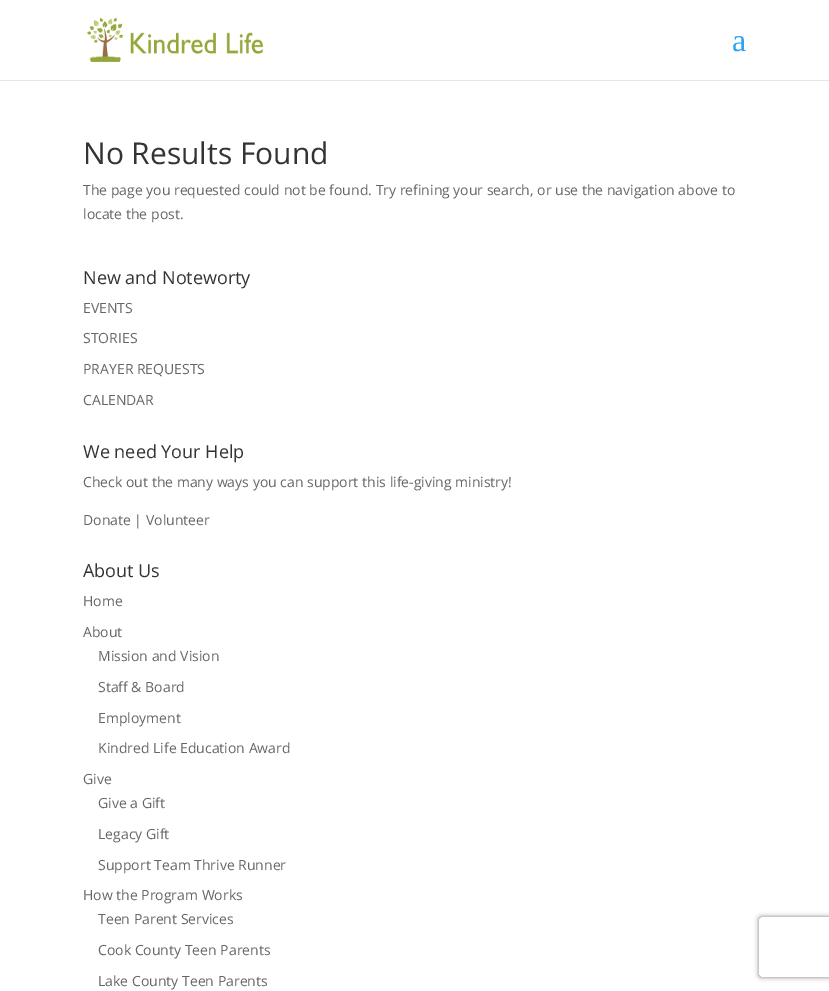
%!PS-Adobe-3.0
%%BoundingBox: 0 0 829 991
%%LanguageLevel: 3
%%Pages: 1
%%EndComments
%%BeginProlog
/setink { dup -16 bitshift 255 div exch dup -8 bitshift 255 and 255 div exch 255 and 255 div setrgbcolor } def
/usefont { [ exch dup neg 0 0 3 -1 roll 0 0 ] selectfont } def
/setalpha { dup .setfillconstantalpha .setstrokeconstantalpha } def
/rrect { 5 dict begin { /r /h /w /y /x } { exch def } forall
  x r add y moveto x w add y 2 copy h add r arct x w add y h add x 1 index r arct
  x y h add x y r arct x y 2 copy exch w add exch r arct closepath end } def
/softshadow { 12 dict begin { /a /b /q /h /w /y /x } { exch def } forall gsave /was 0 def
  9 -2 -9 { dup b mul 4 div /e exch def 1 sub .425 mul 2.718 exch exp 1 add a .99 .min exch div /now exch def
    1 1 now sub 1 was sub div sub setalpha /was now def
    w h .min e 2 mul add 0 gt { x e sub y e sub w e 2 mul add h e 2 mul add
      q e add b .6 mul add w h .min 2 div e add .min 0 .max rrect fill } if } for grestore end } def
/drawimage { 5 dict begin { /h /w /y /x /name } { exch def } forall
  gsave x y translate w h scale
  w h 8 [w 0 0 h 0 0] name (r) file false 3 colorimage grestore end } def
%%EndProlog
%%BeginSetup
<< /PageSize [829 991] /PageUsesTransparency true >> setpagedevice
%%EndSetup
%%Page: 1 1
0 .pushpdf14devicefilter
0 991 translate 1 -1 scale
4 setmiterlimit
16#FFFFFF setink
0 0 829 991 rectfill
16#E6E6E6 setink
0 80 829 1 rectfill
(img1.raw) 87 18 176 44 drawimage
/LiberationSerif-Regular 32 usefont
16#2EA3F2 setink
732 51 moveto (a) show
/OpenSans-Regular 30 usefont
16#333333 setink
83 164 moveto (No Results Found) show
/OpenSans-Regular 14 usefont
16#666666 setink
83 195 moveto (The page you requested could not be found. Try refining your search, or use the navigation above to) show
83 219 moveto (locate the post.) show
/OpenSans-Regular 18 usefont
16#333333 setink
83 284 moveto (New and Noteworty) show
/OpenSans-Regular 14 usefont
16#666666 setink
[
    [(EVENTS) 83 313]
    [(STORIES) 83 343]
    [(PRAYER REQUESTS) 83 374]
    [(CALENDAR) 83 405]
] { aload pop moveto show } forall
/OpenSans-Regular 18 usefont
16#333333 setink
83 458 moveto (We need Your Help) show
/OpenSans-Regular 14 usefont
16#666666 setink
83 487 moveto (Check out the many ways you can support this life-giving ministry!) show
83 525 moveto (Donate | Volunteer) show
/OpenSans-Regular 18 usefont
16#333333 setink
83 577 moveto (About Us) show
/OpenSans-Regular 14 usefont
16#666666 setink
[
    [(Home) 83 606]
    [(About) 83 637]
    [(Mission and Vision) 98 661]
    [(Staff & Board) 98 692]
    [(Employment) 98 723]
    [(Kindred Life Education Award) 98 753]
    [(Give) 83 784]
    [(Give a Gift) 98 808]
    [(Legacy Gift) 98 839]
    [(Support Team Thrive Runner) 98 870]
    [(How the Program Works) 83 900]
    [(Teen Parent Services) 98 924]
    [(Cook County Teen Parents) 98 955]
    [(Lake County Teen Parents) 98 986]
] { aload pop moveto show } forall
gsave
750 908 moveto 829 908 lineto 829 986 lineto 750 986 lineto closepath 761 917 moveto 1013 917 lineto 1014 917 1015 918 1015 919 curveto 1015 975 lineto 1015 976 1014 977 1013 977 curveto 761 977 lineto 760 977 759 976 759 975 curveto 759 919 lineto 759 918 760 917 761 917 curveto closepath eoclip newpath
16#808080 setink
759 917 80 60 2 2.5 1 softshadow
grestore
.poppdf14devicefilter showpage
%%EOF
